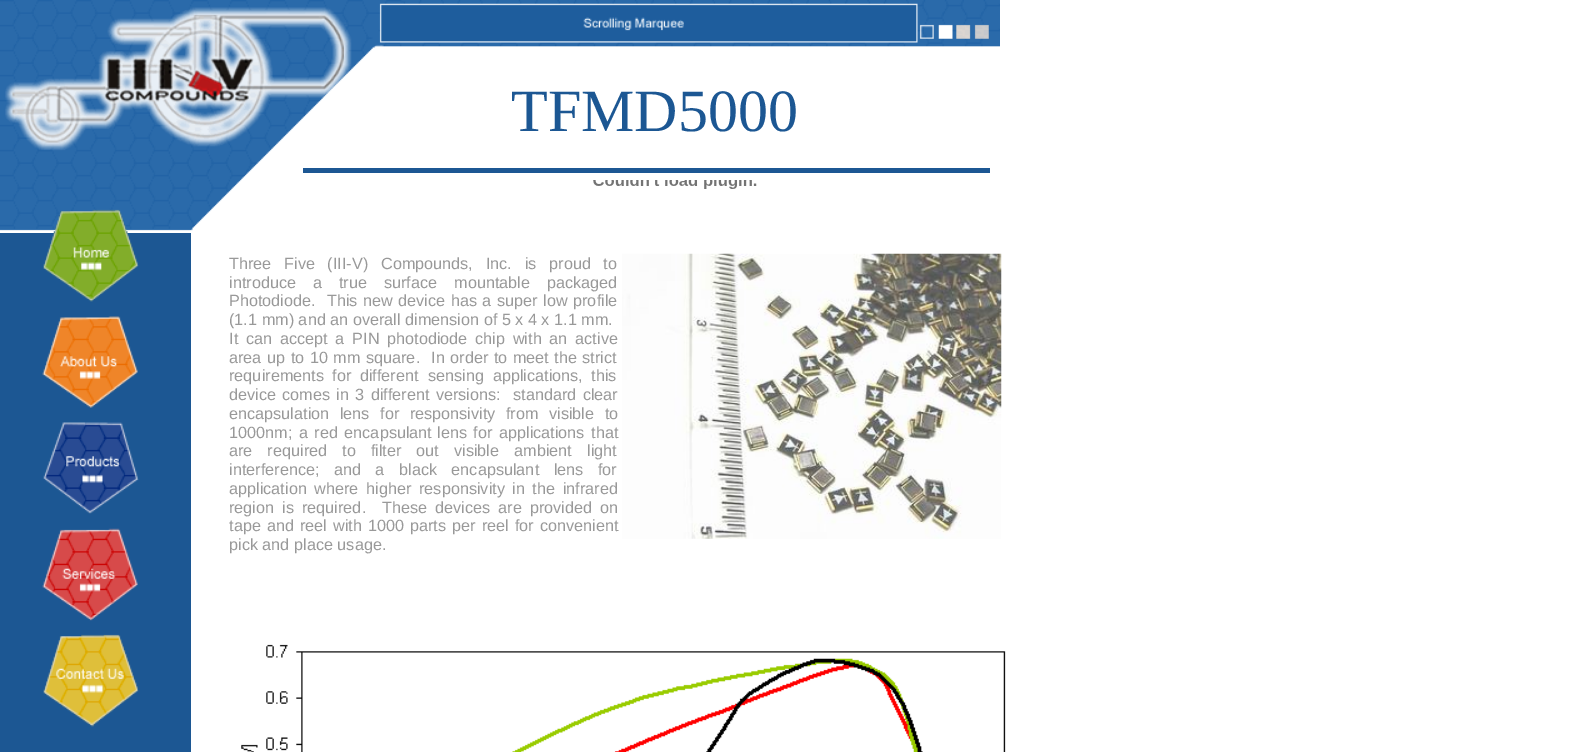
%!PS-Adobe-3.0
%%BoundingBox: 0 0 1574 752
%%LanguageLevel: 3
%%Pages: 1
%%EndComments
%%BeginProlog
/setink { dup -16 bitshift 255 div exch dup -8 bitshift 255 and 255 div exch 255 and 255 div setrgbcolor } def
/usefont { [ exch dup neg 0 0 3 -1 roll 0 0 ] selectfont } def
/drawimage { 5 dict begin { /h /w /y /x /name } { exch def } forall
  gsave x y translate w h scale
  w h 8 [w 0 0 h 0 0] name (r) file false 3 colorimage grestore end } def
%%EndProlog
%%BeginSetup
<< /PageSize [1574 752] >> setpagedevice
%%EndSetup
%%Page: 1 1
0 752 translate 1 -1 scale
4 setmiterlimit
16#FFFFFF setink
0 0 1574 752 rectfill
(img1.raw) 0 0 1000 231 drawimage
/LiberationSerif-Regular 60 usefont
16#1C5793 setink
511 131 moveto (TFMD5000) show
303 168 687 5 rectfill
(img2.raw) 593 180 164 9 drawimage
0 233 191 519 rectfill
(img3.raw) 43 209 96 93 drawimage
/LiberationSans-Regular 16.25 usefont
16#999999 setink
229 269 moveto (Three) show
284 269 moveto 8.25 0 32 (Five \(III-V\) Compounds, Inc. is proud to) widthshow
(img4.raw) 622 253 380 286 drawimage
229 288 moveto 12.5 0 32 (introduce a true surface) widthshow
454 288 moveto (mountable) show
547 288 moveto (packaged) show
229 306 moveto 1 0 32 (Photodiode.  This new device has a super low profile) widthshow
229 325 moveto (\(1.1 mm\) and an overall dimension of 5 x 4 x 1.1 mm.) show
229 344 moveto 3.25 0 32 (It can accept a PIN photodiode chip with an active) widthshow
229 363 moveto 1 0 32 (area up to 10 mm square.  In order to meet the strict) widthshow
229 381 moveto 4 0 32 (requirements for different) widthshow
428 381 moveto 4 0 32 (sensing applications, this) widthshow
229 400 moveto 1.75 0 32 (device comes in 3 different versions:  standard clear) widthshow
229 419 moveto 6 0 32 (encapsulation lens for responsivity from visible to) widthshow
229 438 moveto 2 0 32 (1000nm; a red encapsulant) widthshow
437 438 moveto 2 0 32 (lens for applications that) widthshow
229 456 moveto 10.5 0 32 (are required to filter out visible ambient light) widthshow
229 475 moveto 10 0 32 (interference; and a black encapsulant lens for) widthshow
229 494 moveto 3 0 32 (application where higher) widthshow
419 494 moveto 3 0 32 (responsivity in the infrared) widthshow
229 513 moveto 3.5 0 32 (region is required.  These devices are provided on) widthshow
229 531 moveto 1.5 0 32 (tape and reel with 1000 parts per reel for convenient) widthshow
229 550 moveto (pick and place usage.) show
(img5.raw) 241 644 765 108 drawimage
(img6.raw) 42 316 96 92 drawimage
(img7.raw) 43 422 96 92 drawimage
(img8.raw) 42 528 96 93 drawimage
(img9.raw) 43 634 96 93 drawimage
showpage
%%EOF
